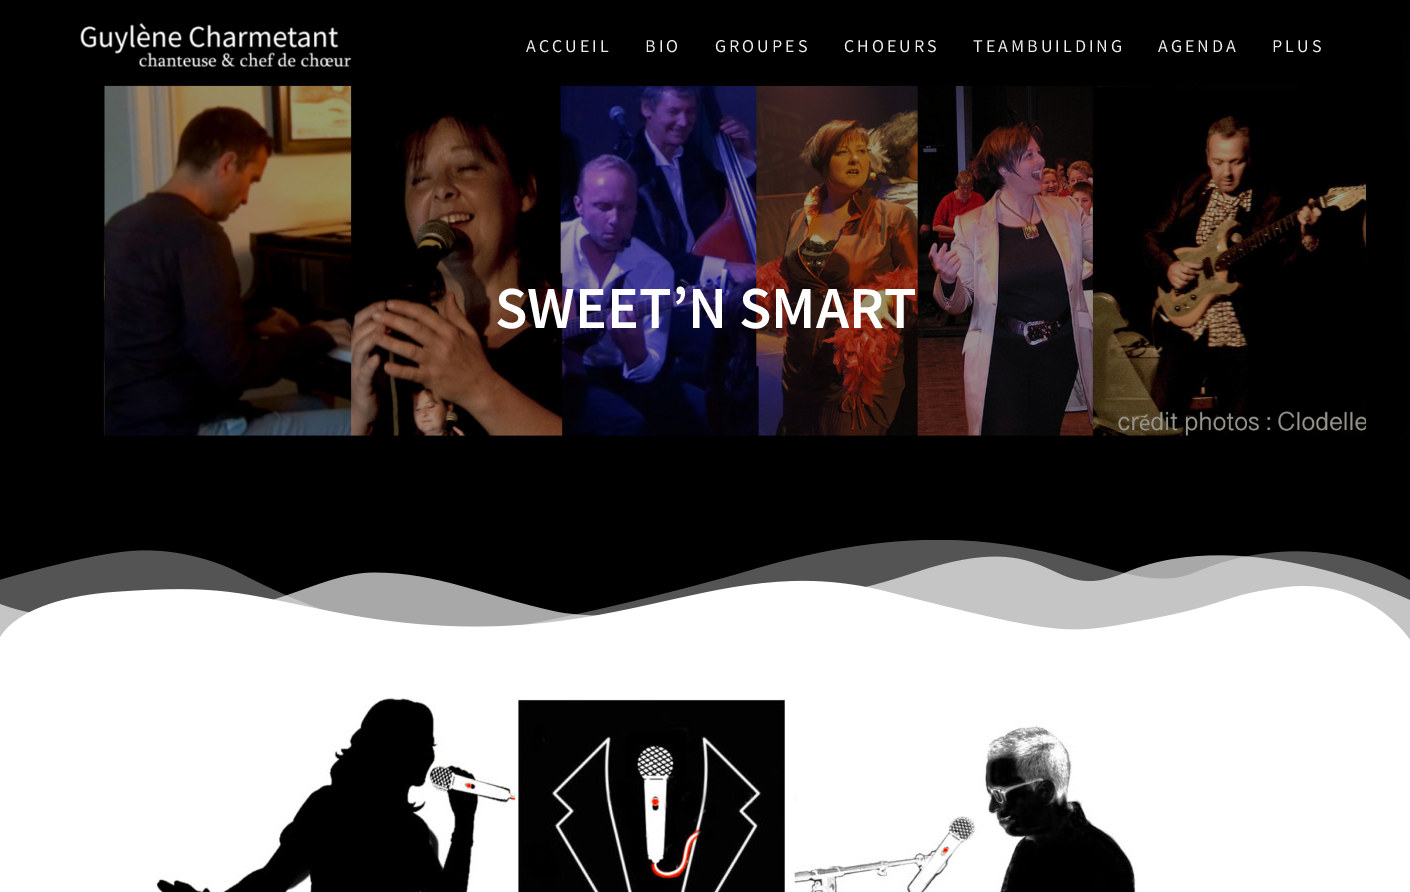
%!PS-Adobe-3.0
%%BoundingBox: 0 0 1410 892
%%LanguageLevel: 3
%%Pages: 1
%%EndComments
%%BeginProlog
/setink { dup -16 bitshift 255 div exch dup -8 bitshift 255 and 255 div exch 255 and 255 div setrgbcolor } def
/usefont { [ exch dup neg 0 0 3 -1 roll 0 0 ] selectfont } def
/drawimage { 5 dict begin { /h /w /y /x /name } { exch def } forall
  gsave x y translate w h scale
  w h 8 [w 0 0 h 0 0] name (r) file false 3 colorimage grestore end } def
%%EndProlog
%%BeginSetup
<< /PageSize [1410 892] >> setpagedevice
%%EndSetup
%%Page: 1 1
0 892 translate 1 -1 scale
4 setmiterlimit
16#FFFFFF setink
0 0 1410 892 rectfill
(img2.raw) 0 0 1410 639 drawimage
(img1.raw) 80 23 272 45 drawimage
/SourceSansPro-Regular 18 usefont
16#EDEDED setink
526 52 moveto 3 0 (ACCUEIL) ashow
645 52 moveto 3 0 (BIO) ashow
715 52 moveto 3 0 (GROUPES) ashow
844 52 moveto 3 0 (CHOEURS) ashow
973 52 moveto 3 0 (TEAMBUILDING) ashow
1158 52 moveto 3 0 (AGENDA) ashow
1272 52 moveto 3 0 (PLUS) ashow
/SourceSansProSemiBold-SemiBold 59.5 usefont
16#FFFFFF setink
495 328 moveto (SWEET’N SMART) show
(img3.raw) 0 540 1410 99 drawimage
(img4.raw) 156 697 982 195 drawimage
showpage
%%EOF
